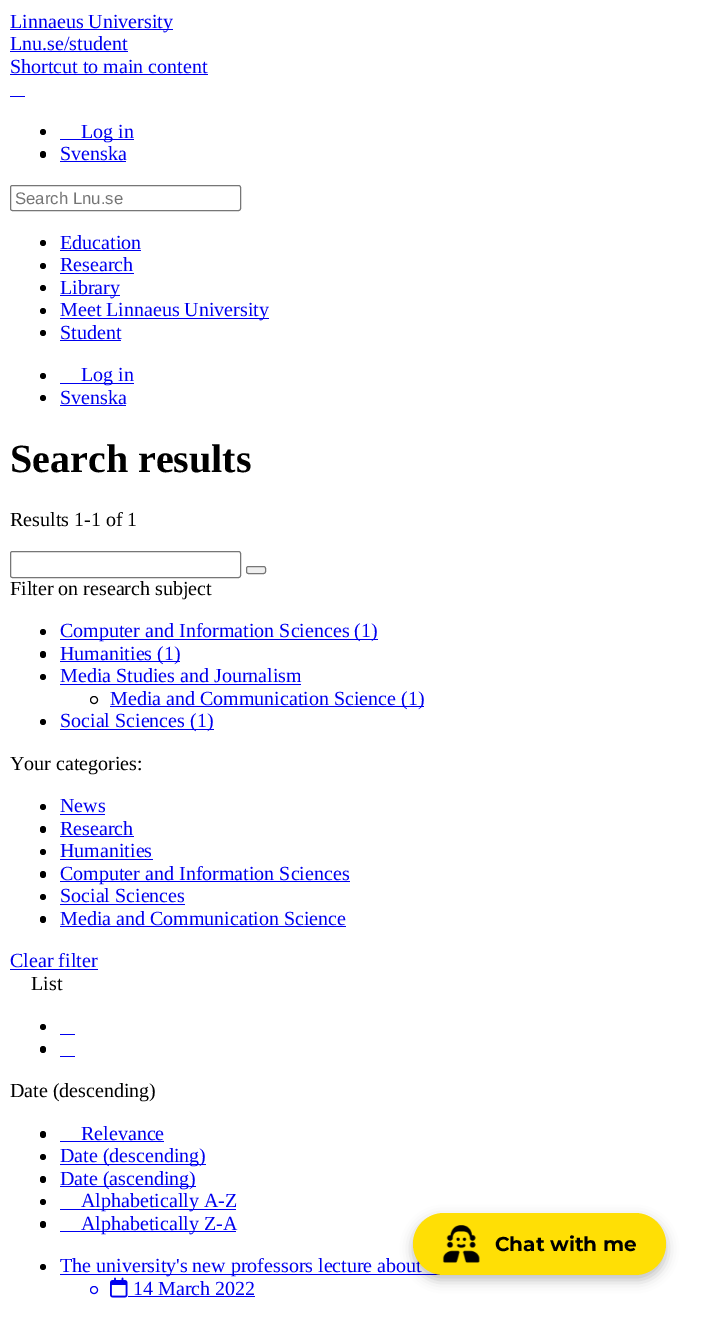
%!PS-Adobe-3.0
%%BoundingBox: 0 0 703 1324
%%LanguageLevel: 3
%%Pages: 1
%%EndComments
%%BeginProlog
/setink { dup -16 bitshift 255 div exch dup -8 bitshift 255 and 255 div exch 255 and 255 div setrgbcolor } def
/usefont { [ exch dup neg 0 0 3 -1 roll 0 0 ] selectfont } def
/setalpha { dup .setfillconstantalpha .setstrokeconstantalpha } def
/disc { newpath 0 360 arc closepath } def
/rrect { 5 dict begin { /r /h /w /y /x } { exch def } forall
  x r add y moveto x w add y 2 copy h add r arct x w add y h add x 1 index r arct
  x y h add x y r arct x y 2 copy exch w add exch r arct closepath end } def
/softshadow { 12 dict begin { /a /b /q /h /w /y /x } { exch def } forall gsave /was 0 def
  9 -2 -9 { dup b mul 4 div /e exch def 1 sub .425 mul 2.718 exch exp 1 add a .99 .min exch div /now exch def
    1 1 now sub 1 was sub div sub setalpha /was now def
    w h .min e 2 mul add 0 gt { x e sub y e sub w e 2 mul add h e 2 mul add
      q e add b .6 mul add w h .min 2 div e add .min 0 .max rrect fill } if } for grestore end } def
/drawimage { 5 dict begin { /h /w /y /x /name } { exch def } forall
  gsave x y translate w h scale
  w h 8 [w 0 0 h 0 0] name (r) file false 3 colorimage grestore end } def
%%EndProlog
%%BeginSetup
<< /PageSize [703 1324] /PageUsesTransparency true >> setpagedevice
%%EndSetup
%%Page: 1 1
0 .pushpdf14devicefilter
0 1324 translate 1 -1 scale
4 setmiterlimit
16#FFFFFF setink
0 0 703 1324 rectfill
16#0000EE setink
10 29 163 1 rectfill
/LiberationSerif-Regular 20 usefont
10 28 moveto (Linnaeus University) show
10 50 moveto (Lnu.se/student) show
10 51 118 1 rectfill
10 73 moveto (Shortcut to main content) show
10 74 198 1 rectfill
10 96 15 1 rectfill
16#000000 setink
43 132 3 disc fill
16#0000EE setink
60 139 74 1 rectfill
81 138 moveto (Log in) show
16#000000 setink
40 151 6 7 3 rrect fill
16#0000EE setink
60 160 moveto (Svenska) show
60 161 66 1 rectfill
16#767676 setink
10.5 185.5 230 25 2 rrect stroke
/LiberationSans-Regular 16.75 usefont
16#757575 setink
15 204 moveto (Search Lnu.se) show
16#000000 setink
43 243 3 disc fill
/LiberationSerif-Regular 20 usefont
16#0000EE setink
60 249 moveto (Education) show
60 250 81 1 rectfill
16#000000 setink
43 266 3 disc fill
16#0000EE setink
60 271 moveto (Research) show
60 273 74 1 rectfill
16#000000 setink
43 288 3 disc fill
16#0000EE setink
60 295 60 1 rectfill
60 294 moveto (Library) show
16#000000 setink
43 311 3 disc fill
16#0000EE setink
60 318 209 1 rectfill
60 316 moveto (Meet Linnaeus University) show
16#000000 setink
43 333 3 disc fill
16#0000EE setink
60 339 moveto (Student) show
60 340 61 1 rectfill
16#000000 setink
43 376 3 disc fill
16#0000EE setink
60 383 74 1 rectfill
81 381 moveto (Log in) show
16#000000 setink
43 398 3 disc fill
16#0000EE setink
60 404 moveto (Svenska) show
60 405 66 1 rectfill
/LiberationSerif-Bold 40 usefont
16#000000 setink
10 472 moveto (Search results) show
/LiberationSerif-Regular 20 usefont
10 526 moveto (Results 1-1 of 1) show
16#767676 setink
10.5 551.5 230 26 2 rrect stroke
16#EFEFEF setink
246.5 566.5 19 7 2 rrect gsave fill grestore
16#767676 setink
stroke
16#000000 setink
10 595 moveto (Filter on research subject) show
43 632 3 disc fill
16#0000EE setink
60 639 318 1 rectfill
60 637 moveto (Computer and Information Sciences \(1\)) show
16#000000 setink
40 651 6 7 3 rrect fill
16#0000EE setink
60 661 120 1 rectfill
60 660 moveto (Humanities \(1\)) show
16#000000 setink
43 677 3 disc fill
16#0000EE setink
60 682 moveto (Media Studies and Journalism) show
60 684 241 1 rectfill
16#000000 setink
94 700 3.5 disc stroke
16#0000EE setink
110 706 314 1 rectfill
110 705 moveto (Media and Communication Science \(1\)) show
16#000000 setink
43 722 3 disc fill
16#0000EE setink
60 729 154 1 rectfill
60 727 moveto (Social Sciences \(1\)) show
16#000000 setink
10 770 moveto (Your categories:) show
43 807 3 disc fill
16#0000EE setink
60 812 moveto (News) show
60 814 45 1 rectfill
16#000000 setink
40 826 6 7 3 rrect fill
16#0000EE setink
60 835 moveto (Research) show
60 836 74 1 rectfill
16#000000 setink
43 852 3 disc fill
16#0000EE setink
60 857 moveto (Humanities) show
60 859 93 1 rectfill
16#000000 setink
40 871 6 7 3 rrect fill
16#0000EE setink
60 881 290 1 rectfill
60 880 moveto (Computer and Information Sciences) show
16#000000 setink
43 897 3 disc fill
16#0000EE setink
60 902 moveto (Social Sciences) show
60 904 125 1 rectfill
16#000000 setink
40 916 6 7 3 rrect fill
16#0000EE setink
60 925 moveto (Media and Communication Science) show
60 926 286 1 rectfill
10 967 moveto (Clear filter) show
10 969 88 1 rectfill
16#000000 setink
31 990 moveto (List) show
43 1027 3 disc fill
16#0000EE setink
60 1034 15 1 rectfill
16#000000 setink
40 1046 6 7 3 rrect fill
16#0000EE setink
60 1056 15 1 rectfill
16#000000 setink
10 1097 moveto (Date \(descending\)) show
40 1131 6 7 3 rrect fill
16#0000EE setink
81 1140 moveto (Relevance) show
60 1141 104 1 rectfill
16#000000 setink
43 1157 3 disc fill
16#0000EE setink
60 1164 146 1 rectfill
60 1162 moveto (Date \(descending\)) show
16#000000 setink
40 1176 6 7 3 rrect fill
16#0000EE setink
60 1186 136 1 rectfill
60 1185 moveto (Date \(ascending\)) show
16#000000 setink
43 1202 3 disc fill
16#0000EE setink
60 1209 176 1 rectfill
81 1207 moveto (Alphabetically A-Z) show
16#000000 setink
40 1221 6 7 3 rrect fill
16#0000EE setink
60 1231 176 1 rectfill
81 1230 moveto (Alphabetically Z-A) show
16#000000 setink
43 1267 3 disc fill
16#0000EE setink
60 1274 384 1 rectfill
60 1272 moveto (The university's new professors lecture about) show
94 1290 3.5 disc stroke
(img1.raw) 110 1277 18 21 drawimage
133 1295 moveto (14 March 2022) show
128 1296 127 1 rectfill
16#000000 setink
413 1218 253 62 31 6 0.25 softshadow
16#FFDF05 setink
413 1213 253 62 31 rrect fill
(img2.raw) 442 1225 38 38 drawimage
/Montserrat-Bold 20 usefont
16#000000 setink
495 1251 moveto (Chat with me) show
.poppdf14devicefilter showpage
%%EOF
